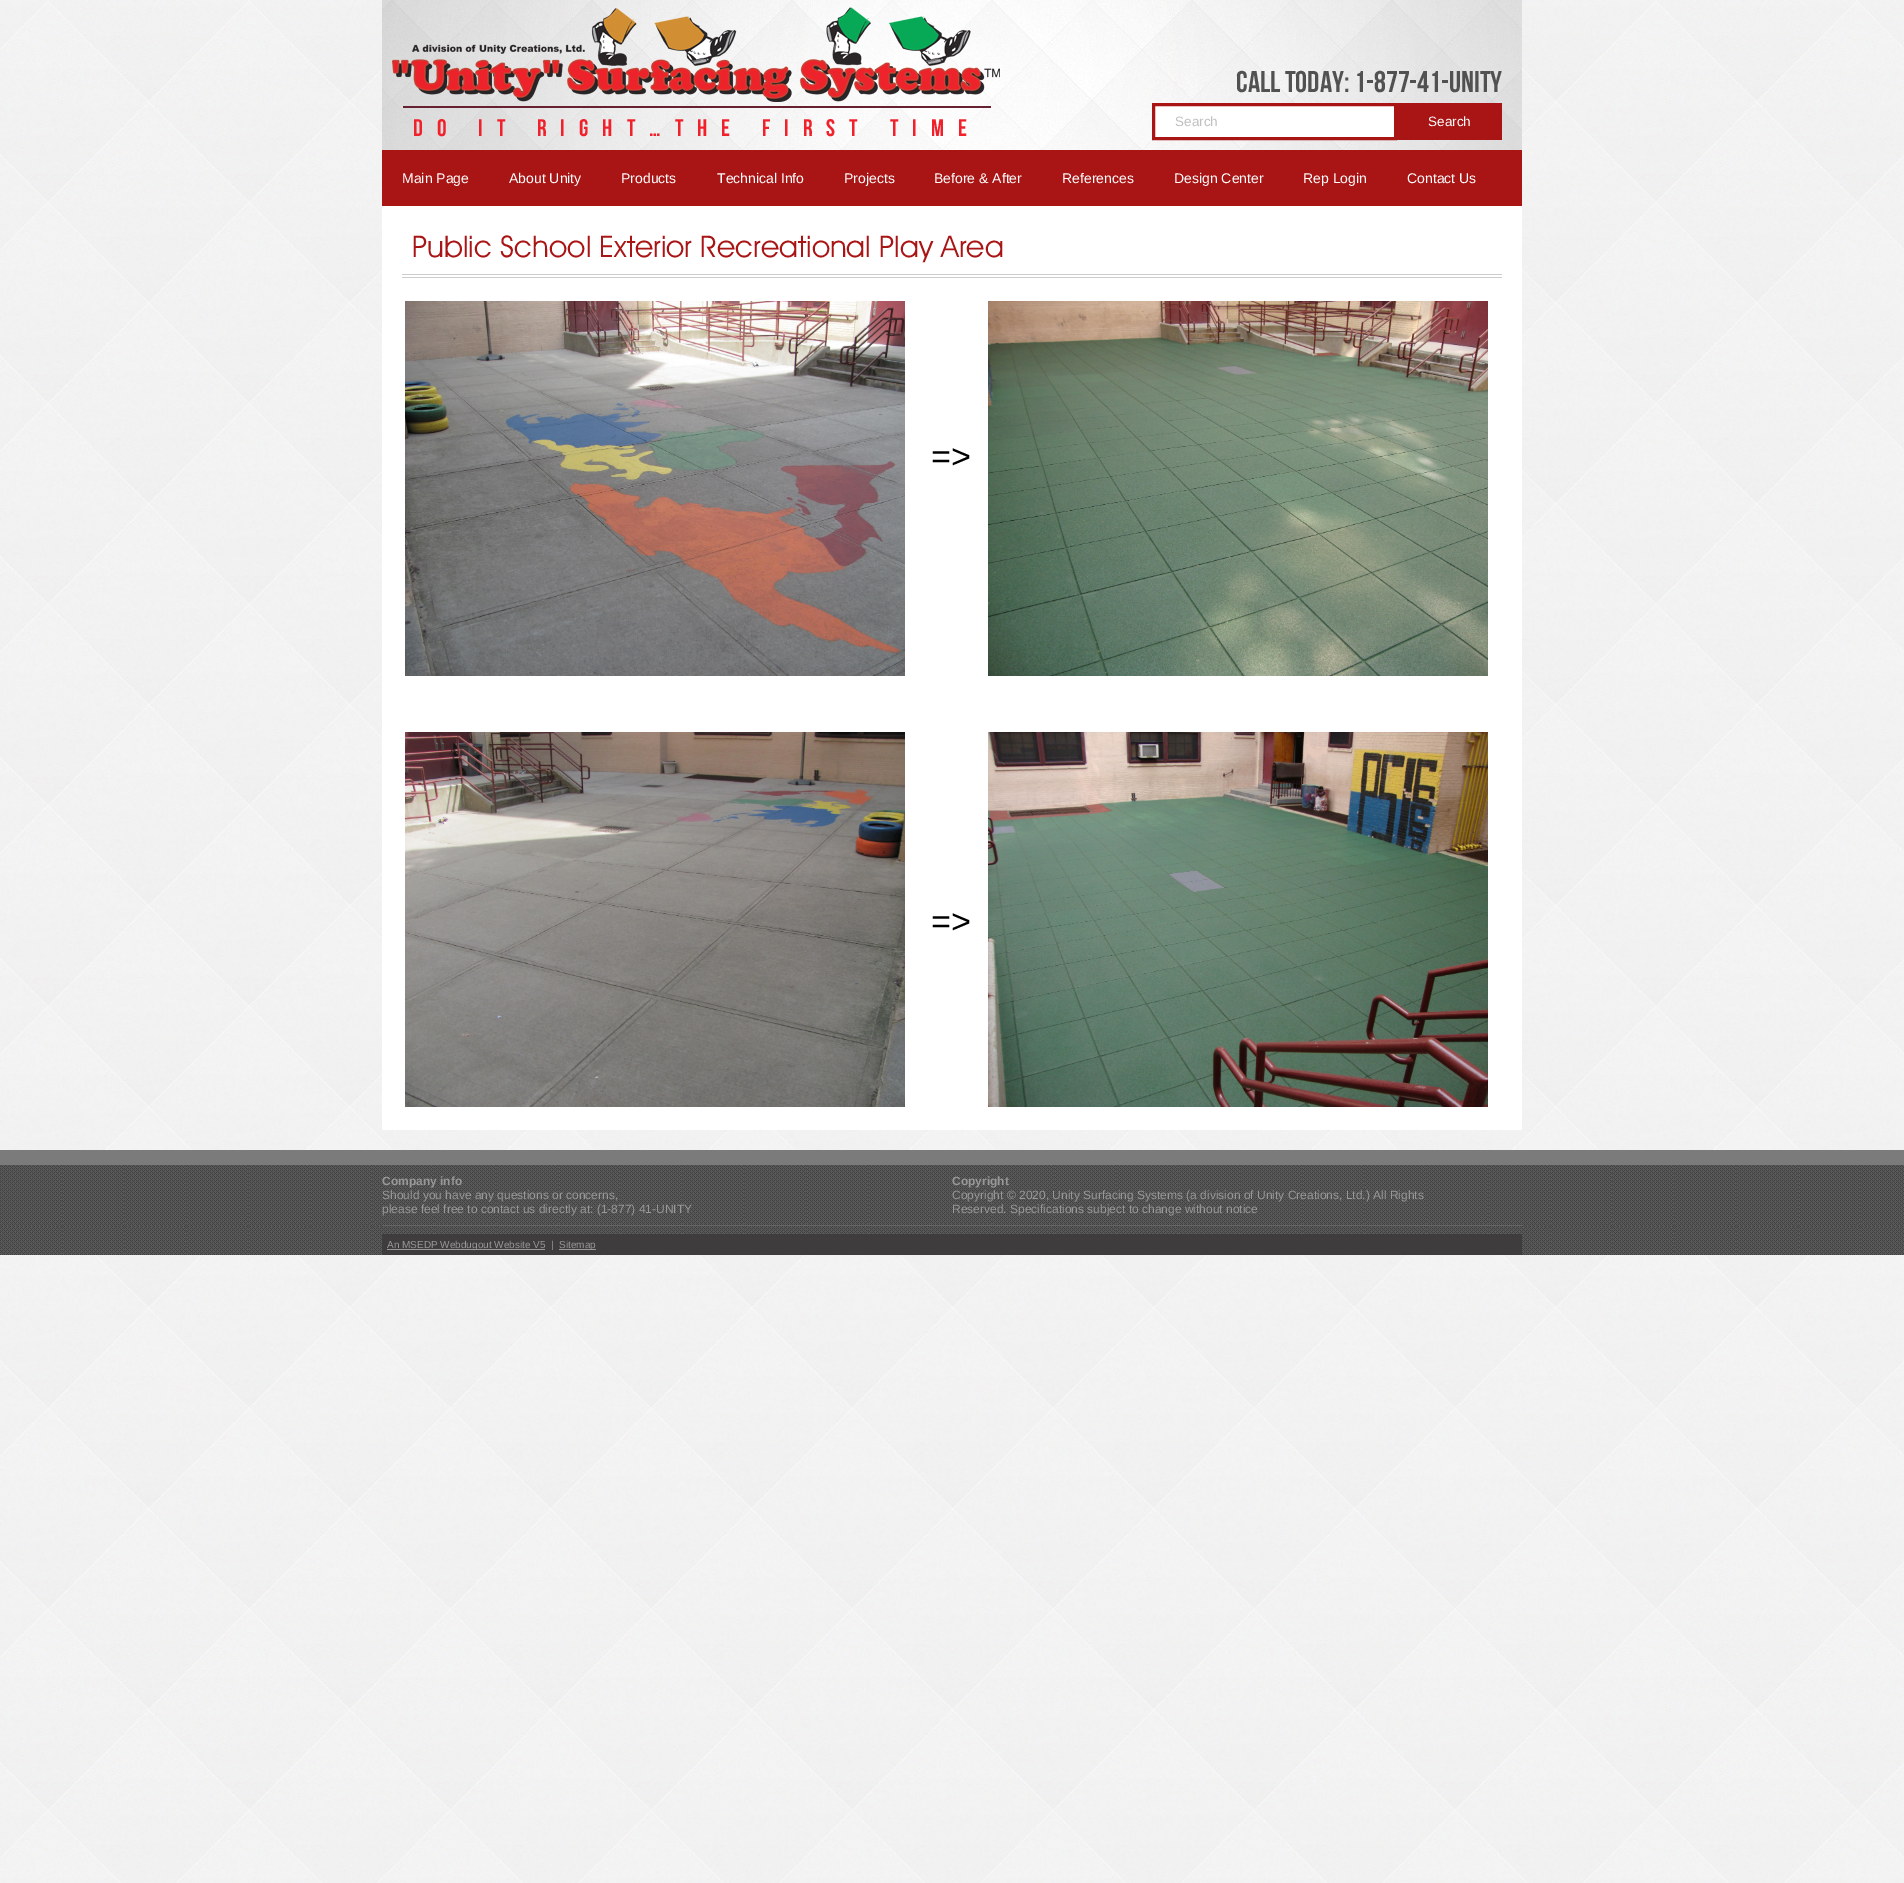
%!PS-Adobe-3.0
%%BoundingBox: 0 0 1904 1883
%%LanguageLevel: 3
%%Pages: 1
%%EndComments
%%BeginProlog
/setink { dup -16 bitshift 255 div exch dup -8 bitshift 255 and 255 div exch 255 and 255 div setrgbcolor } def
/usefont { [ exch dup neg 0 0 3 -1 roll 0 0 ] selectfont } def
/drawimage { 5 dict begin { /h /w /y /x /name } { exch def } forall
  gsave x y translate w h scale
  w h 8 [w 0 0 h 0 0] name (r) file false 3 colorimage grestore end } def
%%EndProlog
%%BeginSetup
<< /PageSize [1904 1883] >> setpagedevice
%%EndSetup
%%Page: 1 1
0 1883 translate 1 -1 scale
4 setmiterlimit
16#FFFFFF setink
0 0 1904 1883 rectfill
(img1.raw) 0 0 1904 1883 drawimage
(img2.raw) 382 0 1140 150 drawimage
(img3.raw) 392 7 608 95 drawimage
/BebasNeue-Regular 30 usefont
16#515151 setink
1236 92 moveto (CALL TODAY: 1-877-41-UNITY) show
16#662132 setink
403 106 588 2 rectfill
/BebasNeue-Regular 24 usefont
16#F0212B setink
413 136 moveto 14 0 (DO IT RIGHT…THE FIRST TIME) ashow
16#FFFFFF setink
1153.5 104.5 moveto 1395.5 104.5 lineto 1395.5 138.5 lineto 1153.5 138.5 lineto closepath gsave fill grestore
16#A91414 setink
3 setlinewidth
stroke
/LiberationSans-Regular 13.5 usefont
16#C0C0C0 setink
1175 126 moveto (Search) show
16#A91414 setink
1397 103 105 37 rectfill
16#FFFFFF setink
1428 126 moveto (Search) show
16#A91414 setink
382 150 1140 56 rectfill
/LiberationSans-Regular 14 usefont
16#FFFFFF setink
[
    [(Main Page) 402 183]
    [(About Unity) 509 183]
    [(Products) 621 183]
    [(Technical Info) 717 183]
    [(Projects) 844 183]
    [(Before & After) 934 183]
    [(References) 1062 183]
    [(Design Center) 1174 183]
    [(Rep Login) 1303 183]
    [(Contact Us) 1407 183]
] { aload pop moveto show } forall
[
    [382 206 1140 924 16#FFFFFF]
    [402 274 1100 1 16#CCCCCC]
    [402 277 1100 1 16#CCCCCC]
] { aload pop setink rectfill } forall
/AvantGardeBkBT-Regular 30 usefont
16#A91414 setink
412 257 moveto (Public School Exterior Recreational Play Area) show
(img4.raw) 405 301 500 375 drawimage
/LiberationSans-Regular 34 usefont
16#000000 setink
931 468 moveto (=>) show
(img5.raw) 988 301 500 375 drawimage
(img6.raw) 405 732 500 375 drawimage
931 933 moveto (=>) show
(img7.raw) 988 732 500 375 drawimage
(img8.raw) 0 1165 1904 90 drawimage
16#7B7B7B setink
0 1150 1904 15 rectfill
16#666666 setink
382 1225 1140 1 rectfill
/LiberationSans-Bold 12 usefont
16#999999 setink
382 1185 moveto (Company info) show
/LiberationSans-Regular 12 usefont
382 1199 moveto (Should you have any questions or concerns,) show
382 1213 moveto (please feel free to contact us directly at: \(1-877\) 41-UNITY) show
/LiberationSans-Bold 12 usefont
952 1185 moveto (Copyright) show
/LiberationSans-Regular 12 usefont
952 1199 moveto (Copyright © 2020, Unity Surfacing Systems \(a division of Unity Creations, Ltd.\) All Rights) show
952 1213 moveto (Reserved. Specifications subject to change without notice) show
16#3E3C3C setink
382 1234 1140 21 rectfill
16#999999 setink
387 1249 158 1 rectfill
/LiberationSans-Regular 10 usefont
387 1248 moveto (An MSEDP Webdugout Website V5) show
551 1248 moveto (|) show
559 1249 37 1 rectfill
559 1248 moveto (Sitemap) show
showpage
%%EOF
